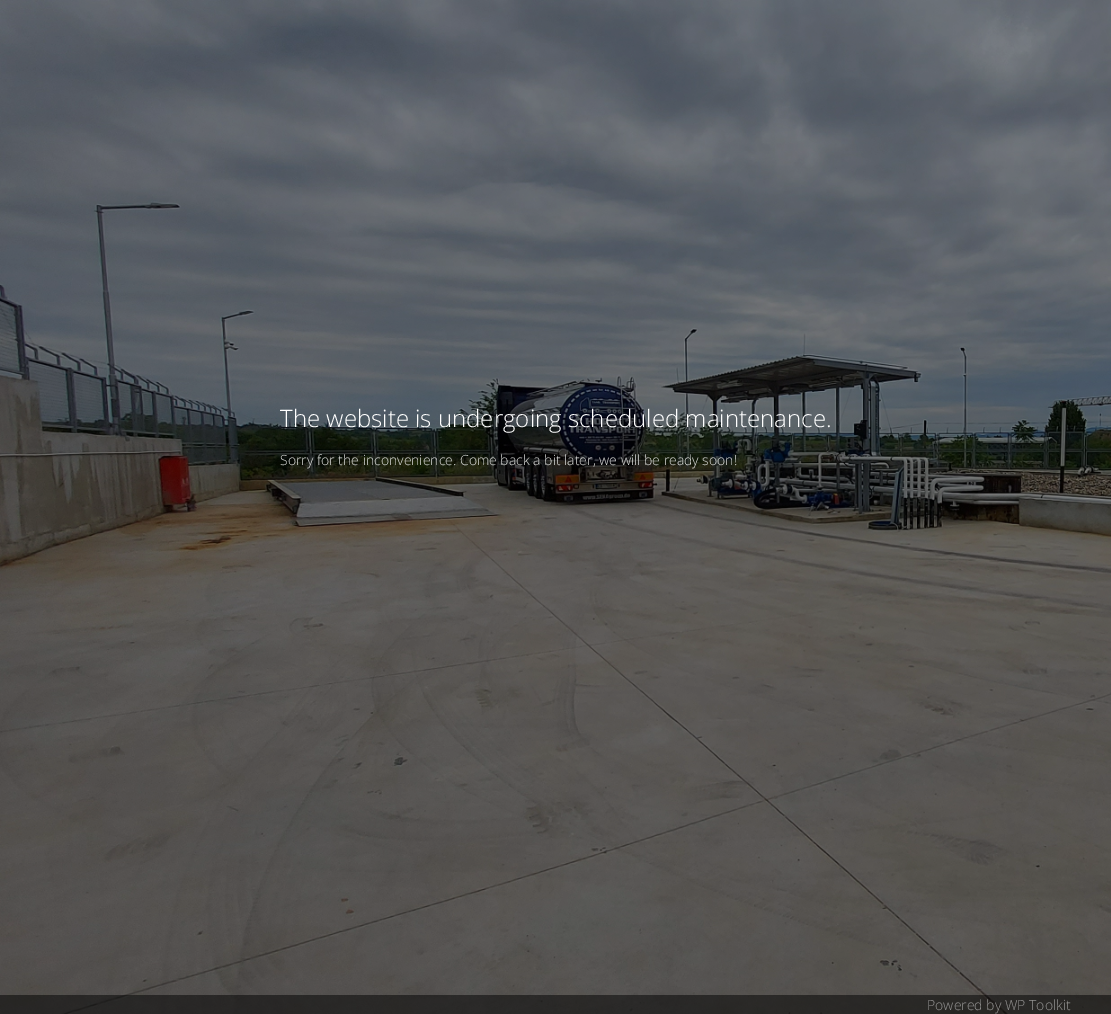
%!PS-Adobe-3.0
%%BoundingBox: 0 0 1111 1014
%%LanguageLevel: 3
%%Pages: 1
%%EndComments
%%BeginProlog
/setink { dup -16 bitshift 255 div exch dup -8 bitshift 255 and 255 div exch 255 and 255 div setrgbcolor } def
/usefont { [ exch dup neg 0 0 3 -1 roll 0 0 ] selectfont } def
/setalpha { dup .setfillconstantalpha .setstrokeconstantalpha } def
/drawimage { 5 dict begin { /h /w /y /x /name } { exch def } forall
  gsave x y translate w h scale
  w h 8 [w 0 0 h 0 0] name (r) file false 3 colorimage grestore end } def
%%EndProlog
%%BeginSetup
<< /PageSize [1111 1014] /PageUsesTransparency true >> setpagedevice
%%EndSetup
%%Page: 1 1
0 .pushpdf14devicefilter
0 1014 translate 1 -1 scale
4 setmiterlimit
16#FFFFFF setink
0 0 1111 1014 rectfill
(img1.raw) 0 0 1111 1014 drawimage
/OpenSans-Light 24 usefont
280 427 moveto (The website is undergoing scheduled maintenance.) show
/OpenSans-Light 14 usefont
16#DCDDDB setink
280 465 moveto (Sorry for the inconvenience. Come back a bit later, we will be ready soon!) show
0.5 setalpha
16#000000 setink
0 995 1111 19 rectfill
1 setalpha
16#949392 setink
927 1010 moveto (Powered by WP Toolkit) show
.poppdf14devicefilter showpage
%%EOF
